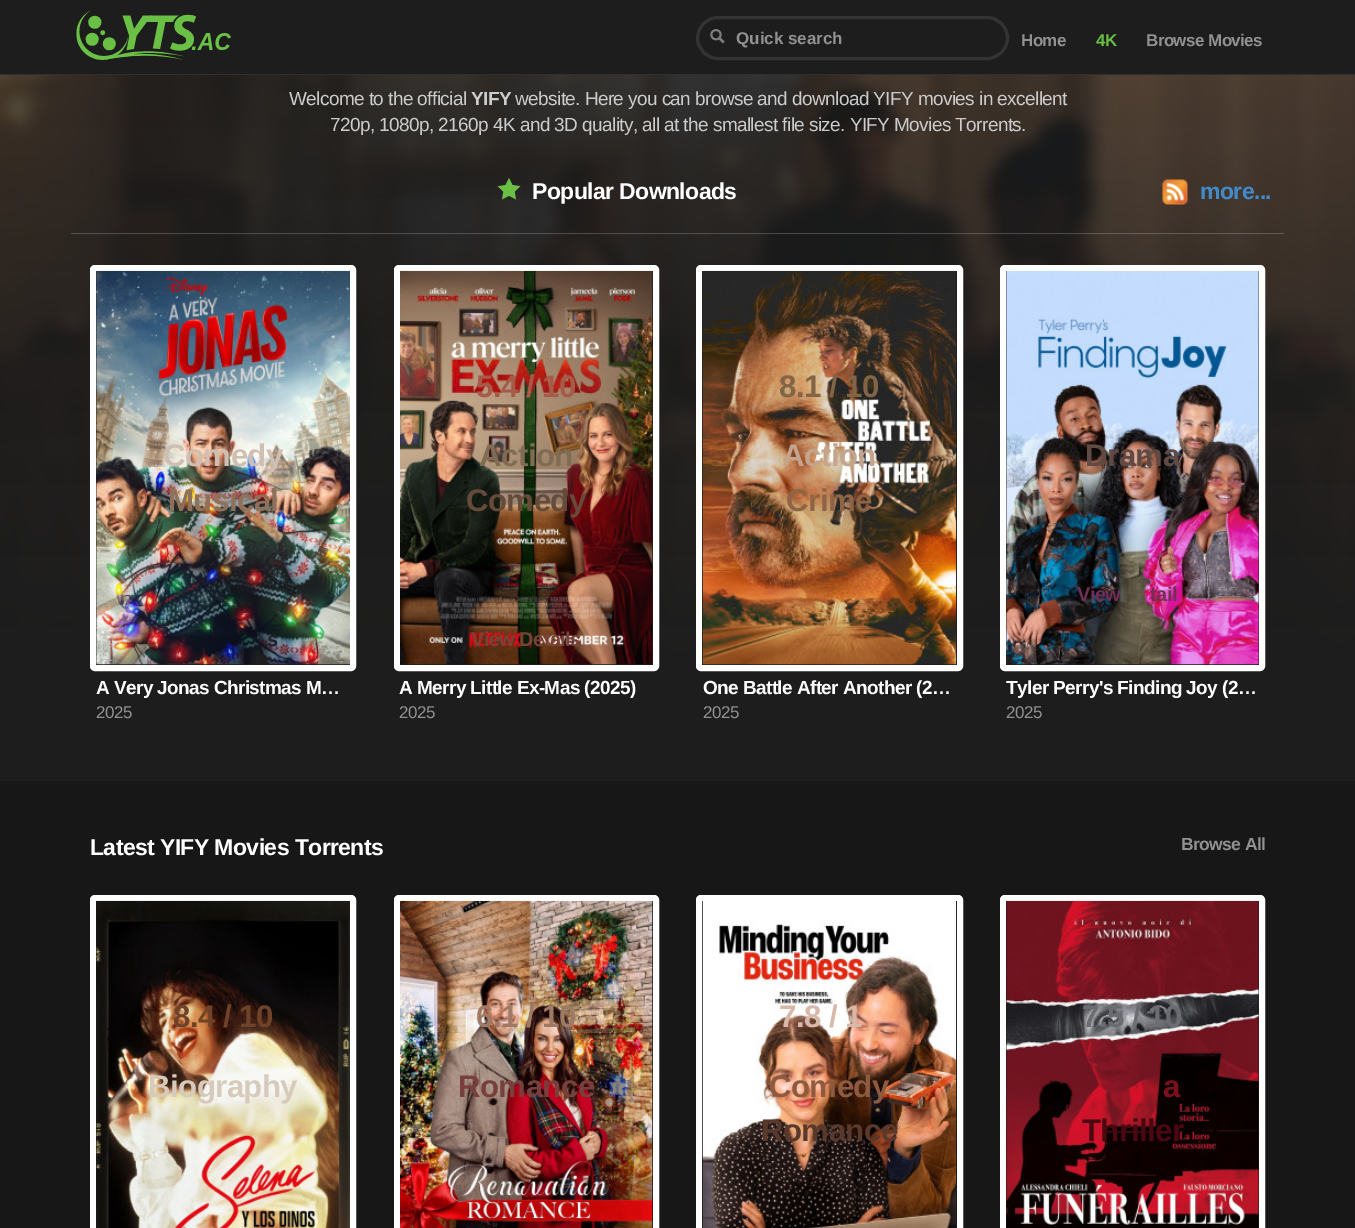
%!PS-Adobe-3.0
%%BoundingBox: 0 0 1355 1228
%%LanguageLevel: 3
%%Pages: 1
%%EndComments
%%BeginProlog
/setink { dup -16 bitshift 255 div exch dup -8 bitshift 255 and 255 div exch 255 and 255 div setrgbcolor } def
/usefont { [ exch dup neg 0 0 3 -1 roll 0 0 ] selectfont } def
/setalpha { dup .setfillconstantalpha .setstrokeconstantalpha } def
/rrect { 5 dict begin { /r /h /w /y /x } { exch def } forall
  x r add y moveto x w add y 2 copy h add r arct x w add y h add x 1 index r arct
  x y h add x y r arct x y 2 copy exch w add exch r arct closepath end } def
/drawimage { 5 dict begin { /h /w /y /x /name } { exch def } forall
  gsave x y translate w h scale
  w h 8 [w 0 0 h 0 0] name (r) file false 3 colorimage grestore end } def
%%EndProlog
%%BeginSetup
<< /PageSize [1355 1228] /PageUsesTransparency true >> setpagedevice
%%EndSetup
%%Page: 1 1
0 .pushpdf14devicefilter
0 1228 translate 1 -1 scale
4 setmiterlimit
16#1D1D1D setink
0 0 1355 1228 rectfill
16#2F2F2F setink
0 74 1355 1 rectfill
(img1.raw) 76 10 155 50 drawimage
(img2.raw) 710 29 15 15 drawimage
16#333333 setink
3 setlinewidth
697.5 17.5 310 41 20.5 rrect stroke
/LiberationSans-Bold 17 usefont
16#919191 setink
736 44 moveto (Quick search) show
1021 46 moveto -0.6 0 (Home) ashow
16#6AC045 setink
1096 46 moveto -0.6 0 (4K) ashow
16#919191 setink
1146 46 moveto -0.6 0 (Browse Movies) ashow
(img3.raw) 0 75 1355 587 drawimage
/LiberationSans-Regular 19 usefont
16#CCCCCC setink
289 105 moveto -0.6 0 (Welcome to the official) ashow
/LiberationSans-Bold 19 usefont
471 105 moveto -0.6 0 (YIFY) ashow
/LiberationSans-Regular 19 usefont
515 105 moveto -0.6 0 (website. Here you can browse and download YIFY movies in excellent) ashow
330 131 moveto -0.6 0 (720p, 1080p, 2160p 4K and 3D quality, all at the smallest file size. YIFY Movies Torrents.) ashow
0.2 setalpha
16#FFFFFF setink
71 233 1213 1 rectfill
1 setalpha
(img4.raw) 497 178 24 22 drawimage
/LiberationSans-Bold 23 usefont
532 199 moveto -0.6 0 (Popular Downloads) ashow
(img5.raw) 1162 179 26 26 drawimage
16#428BCA setink
1200 199 moveto -0.6 0 (more...) ashow
16#FFFFFF setink
6 setlinewidth
93 268 260 400 2 rrect stroke
(img6.raw) 96 270 254 395 drawimage
/LiberationSans-Bold 31.25 usefont
16#CFBFB2 setink
163 466 moveto -0.6 0 (Comedy) ashow
16#8D715B setink
168 511 moveto -0.6 0 (Musical) ashow
/LiberationSans-Bold 20 usefont
16#1C212D setink
267 646 moveto -0.6 0 (s) ashow
/LiberationSans-Bold 19 usefont
16#FFFFFF setink
96 694 moveto -0.6 0 (A Very Jonas Christmas M…) ashow
/LiberationSans-Regular 17 usefont
16#919191 setink
96 718 moveto -0.6 0 (2025) ashow
16#FFFFFF setink
397 268 259 400 2 rrect stroke
(img7.raw) 400 270 253 395 drawimage
/LiberationSans-Bold 31.25 usefont
16#A65B48 setink
476 397 moveto -0.6 0 (5.4 / 10) ashow
16#7E6C53 setink
479 466 moveto -0.6 0 (Action) ashow
16#664A3A setink
466 511 moveto -0.6 0 (Comedy) ashow
/LiberationSans-Bold 20 usefont
16#7A4236 setink
471 646 moveto -0.6 0 (View Details) ashow
/LiberationSans-Bold 19 usefont
16#FFFFFF setink
399 694 moveto -0.6 0 (A Merry Little Ex-Mas \(2025\)) ashow
/LiberationSans-Regular 17 usefont
16#919191 setink
399 718 moveto -0.6 0 (2025) ashow
16#FFFFFF setink
699 268 261 400 2 rrect stroke
(img8.raw) 702 270 255 395 drawimage
/LiberationSans-Bold 31.25 usefont
16#826546 setink
779 397 moveto -0.6 0 (8.1 / 10) ashow
16#C3A58D setink
782 466 moveto -0.6 0 (Action) ashow
16#8D6444 setink
786 511 moveto -0.6 0 (Crime) ashow
/LiberationSans-Bold 19 usefont
16#FFFFFF setink
703 694 moveto -0.6 0 (One Battle After Another \(2…) ashow
/LiberationSans-Regular 17 usefont
16#919191 setink
703 718 moveto -0.6 0 (2025) ashow
16#FFFFFF setink
1003 268 259 400 2 rrect stroke
(img9.raw) 1006 270 253 395 drawimage
/LiberationSans-Bold 31.25 usefont
16#614A44 setink
1085 466 moveto -0.6 0 (Drama) ashow
/LiberationSans-Bold 20 usefont
16#712E56 setink
1077 601 moveto -0.6 0 (View) ashow
1150 601 moveto -0.6 0 (tail) ashow
/LiberationSans-Bold 19 usefont
16#FFFFFF setink
1006 694 moveto -0.6 0 (Tyler Perry's Finding Joy \(2…) ashow
/LiberationSans-Regular 17 usefont
16#919191 setink
1006 718 moveto -0.6 0 (2025) ashow
16#171717 setink
0 781 1355 447 rectfill
/LiberationSans-Bold 23 usefont
16#FFFFFF setink
90 855 moveto -0.6 0 (Latest YIFY Movies Torrents) ashow
/LiberationSans-Bold 17.5 usefont
16#919191 setink
1181 850 moveto -0.6 0 (Browse All) ashow
16#FFFFFF setink
93 898 260 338 2 rrect stroke
(img10.raw) 96 900 254 328 drawimage
/LiberationSans-Bold 31.25 usefont
16#6F4329 setink
173 1027 moveto -0.6 0 (8.4 / 10) ashow
16#D5CABB setink
148 1097 moveto -0.6 0 (Biography) ashow
16#FFFFFF setink
397 898 259 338 2 rrect stroke
(img11.raw) 400 900 253 328 drawimage
16#9F7B67 setink
476 1027 moveto -0.6 0 (6.1 / 10) ashow
16#78403D setink
458 1097 moveto -0.6 0 (Romance) ashow
16#FFFFFF setink
699 898 261 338 2 rrect stroke
(img12.raw) 702 901 255 327 drawimage
16#D8B8A9 setink
779 1027 moveto -0.6 0 (7.8 / 1) ashow
16#8E5B41 setink
769 1097 moveto -0.6 0 (Comedy) ashow
16#59392B setink
761 1141 moveto -0.6 0 (Romance) ashow
16#FFFFFF setink
1003 898 259 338 2 rrect stroke
(img13.raw) 1006 900 253 328 drawimage
16#6C6D72 setink
1082 1027 moveto -0.6 0 (7.5 / 10) ashow
16#7A101C setink
1163 1097 moveto -0.6 0 (a) ashow
16#4C0810 setink
1082 1141 moveto -0.6 0 (Thriller) ashow
.poppdf14devicefilter showpage
%%EOF
